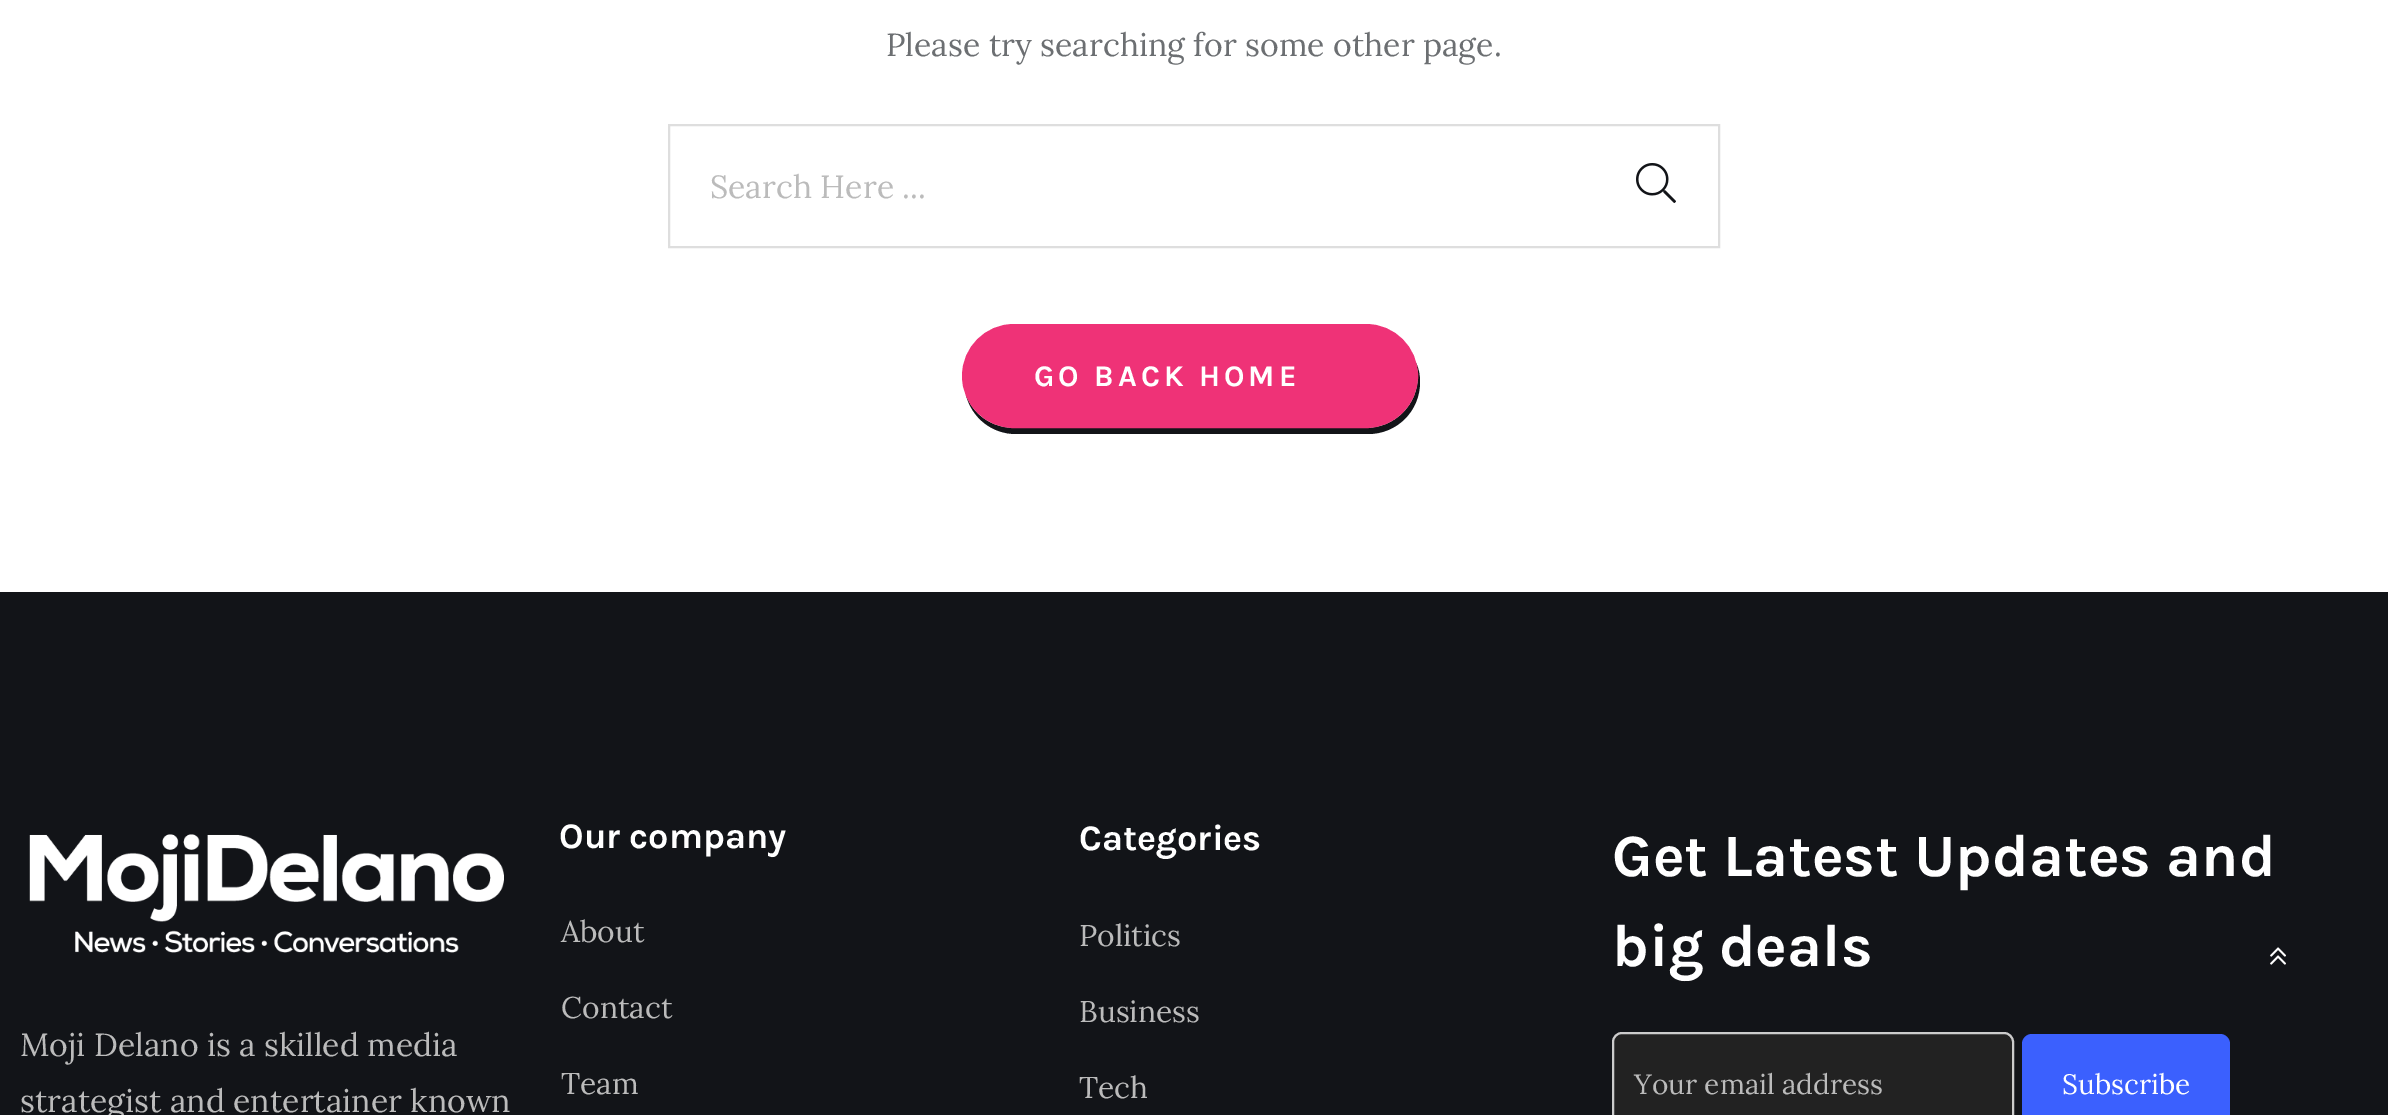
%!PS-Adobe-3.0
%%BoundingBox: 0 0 2388 1115
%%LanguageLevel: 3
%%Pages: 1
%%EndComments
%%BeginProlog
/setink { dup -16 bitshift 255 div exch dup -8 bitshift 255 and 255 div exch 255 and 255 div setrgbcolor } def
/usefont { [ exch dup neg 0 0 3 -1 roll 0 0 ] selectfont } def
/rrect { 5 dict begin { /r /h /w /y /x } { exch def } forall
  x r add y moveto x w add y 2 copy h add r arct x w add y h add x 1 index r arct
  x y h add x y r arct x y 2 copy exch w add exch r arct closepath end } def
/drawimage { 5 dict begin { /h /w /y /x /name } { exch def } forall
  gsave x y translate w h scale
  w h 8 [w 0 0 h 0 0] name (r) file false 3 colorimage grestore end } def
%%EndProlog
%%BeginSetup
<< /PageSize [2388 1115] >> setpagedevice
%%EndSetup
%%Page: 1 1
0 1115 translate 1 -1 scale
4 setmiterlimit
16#FFFFFF setink
0 0 2388 1115 rectfill
/Lora-Regular 32 usefont
16#6C6F72 setink
886 56 moveto (Please try searching for some other page.) show
16#DEDEDE setink
2 setlinewidth
669 125 1050 122 rectstroke
16#BBBBBB setink
710 198 moveto (Search Here ...) show
(img1.raw) 1636 163 40 40 drawimage
16#121418 setink
966 395 moveto 972 418 992 434 1016 434 curveto 1368 434 lineto 1397 434 1420 411 1420 382 curveto 1420 375 1419 369 1416 363 curveto 1417 367 1418 371 1418 376 curveto 1418 405 1395 428 1366 428 curveto 1014 428 lineto 992 428 973 415 966 395 curveto closepath fill
16#EF3277 setink
963 325 454 102 51 rrect gsave fill grestore
stroke
/Karla-Bold 30 usefont
16#FFFFFF setink
1034 386 moveto 4 0 (GO BACK HOME) ashow
16#121418 setink
0 592 2388 523 rectfill
(img2.raw) 29 834 475 119 drawimage
/Lora-Regular 32 usefont
16#BBBBBB setink
20 1056 moveto (Moji Delano is a skilled media) show
20 1112 moveto (strategist and entertainer known) show
/Karla-Bold 36 usefont
16#FFFFFF setink
559 848 moveto (Our company) show
/Lora-Regular 30 usefont
16#BBBBBB setink
[
    [(About) 561 942]
    [(Contact) 561 1018]
    [(Team) 561 1094]
] { aload pop moveto show } forall
/Karla-Bold 36 usefont
16#FFFFFF setink
1079 850 moveto (Categories) show
/Lora-Regular 30 usefont
16#BBBBBB setink
[
    [(Politics) 1079 946]
    [(Business) 1079 1022]
    [(Tech) 1079 1098]
] { aload pop moveto show } forall
/Karla-Bold 60 usefont
16#FFFFFF setink
1612 876 moveto (Get Latest Updates and) show
1612 966 moveto (big deals) show
16#222222 setink
1613 1033 400 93 9 rrect gsave fill grestore
16#CCCCCC setink
stroke
/Lora-Regular 28 usefont
16#BBBBBB setink
1634 1094 moveto (Your email address) show
16#3B60FE setink
2022 1034 208 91 10 rrect fill
16#FFFFFF setink
2062 1094 moveto (Subscribe) show
(img3.raw) 2270 947 16 18 drawimage
showpage
%%EOF
